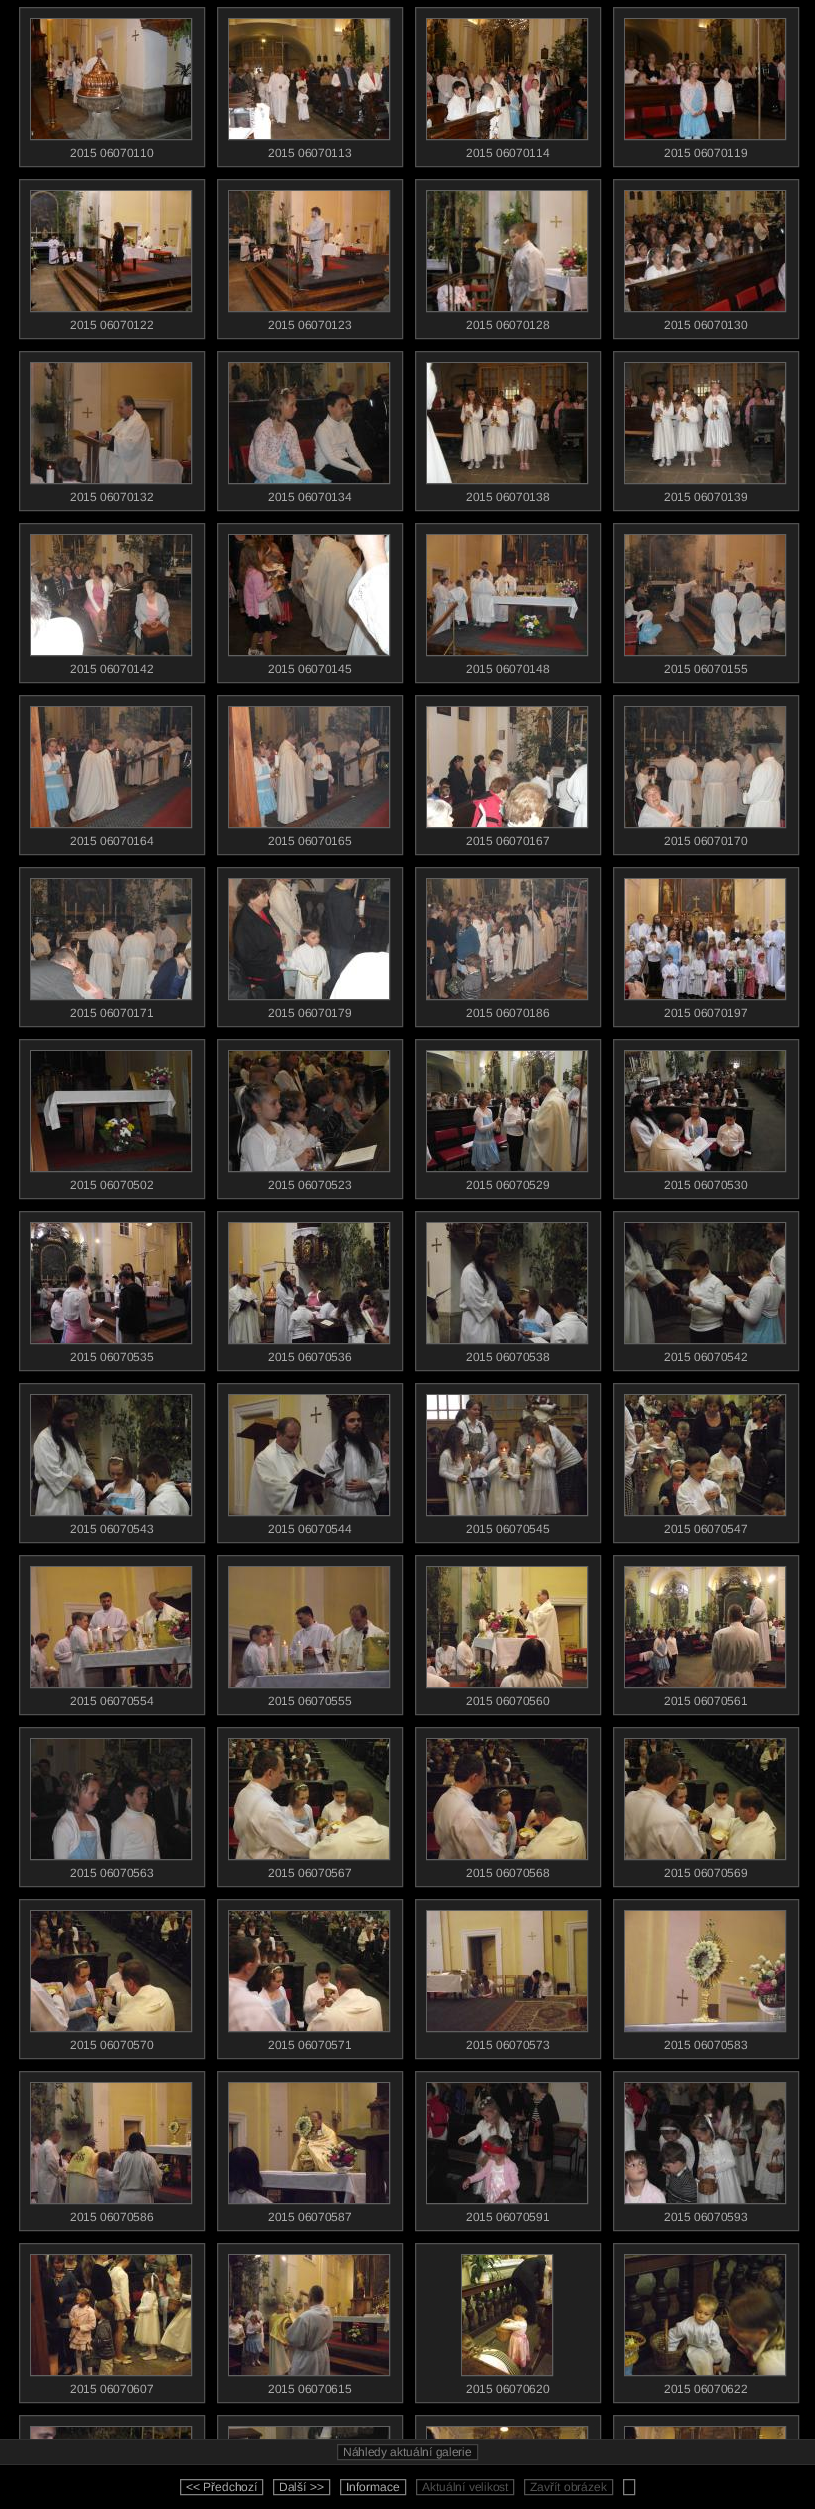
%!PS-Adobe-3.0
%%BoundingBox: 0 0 815 2509
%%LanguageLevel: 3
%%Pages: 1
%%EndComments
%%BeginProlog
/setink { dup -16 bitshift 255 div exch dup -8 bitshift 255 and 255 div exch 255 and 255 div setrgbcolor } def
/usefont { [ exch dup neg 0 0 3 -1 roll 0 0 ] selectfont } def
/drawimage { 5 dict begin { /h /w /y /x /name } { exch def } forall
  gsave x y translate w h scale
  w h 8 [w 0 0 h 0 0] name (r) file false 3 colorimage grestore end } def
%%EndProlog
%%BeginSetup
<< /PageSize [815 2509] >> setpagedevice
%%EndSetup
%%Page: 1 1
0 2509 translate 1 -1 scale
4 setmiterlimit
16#000000 setink
0 0 815 2509 rectfill
16#202020 setink
19.5 7.5 moveto 204.5 7.5 lineto 204.5 166.5 lineto 19.5 166.5 lineto closepath gsave fill grestore
16#505050 setink
stroke
16#606060 setink
30.5 18.5 161 121 rectstroke
(img1.raw) 31 19 160 120 drawimage
/LiberationSans-Regular 12 usefont
16#AAAAAA setink
70 157 moveto (2015 06070110) show
16#202020 setink
217.5 7.5 moveto 402.5 7.5 lineto 402.5 166.5 lineto 217.5 166.5 lineto closepath gsave fill grestore
16#505050 setink
stroke
16#606060 setink
228.5 18.5 161 121 rectstroke
(img2.raw) 229 19 160 120 drawimage
16#AAAAAA setink
268 157 moveto (2015 06070113) show
16#202020 setink
415.5 7.5 moveto 600.5 7.5 lineto 600.5 166.5 lineto 415.5 166.5 lineto closepath gsave fill grestore
16#505050 setink
stroke
16#606060 setink
426.5 18.5 161 121 rectstroke
(img3.raw) 427 19 160 120 drawimage
16#AAAAAA setink
466 157 moveto (2015 06070114) show
16#202020 setink
613.5 7.5 moveto 798.5 7.5 lineto 798.5 166.5 lineto 613.5 166.5 lineto closepath gsave fill grestore
16#505050 setink
stroke
16#606060 setink
624.5 18.5 161 121 rectstroke
(img4.raw) 625 19 160 120 drawimage
16#AAAAAA setink
664 157 moveto (2015 06070119) show
16#202020 setink
19.5 179.5 moveto 204.5 179.5 lineto 204.5 338.5 lineto 19.5 338.5 lineto closepath gsave fill grestore
16#505050 setink
stroke
16#606060 setink
30.5 190.5 161 121 rectstroke
(img5.raw) 31 191 160 120 drawimage
16#AAAAAA setink
70 329 moveto (2015 06070122) show
16#202020 setink
217.5 179.5 moveto 402.5 179.5 lineto 402.5 338.5 lineto 217.5 338.5 lineto closepath gsave fill grestore
16#505050 setink
stroke
16#606060 setink
228.5 190.5 161 121 rectstroke
(img6.raw) 229 191 160 120 drawimage
16#AAAAAA setink
268 329 moveto (2015 06070123) show
16#202020 setink
415.5 179.5 moveto 600.5 179.5 lineto 600.5 338.5 lineto 415.5 338.5 lineto closepath gsave fill grestore
16#505050 setink
stroke
16#606060 setink
426.5 190.5 161 121 rectstroke
(img7.raw) 427 191 160 120 drawimage
16#AAAAAA setink
466 329 moveto (2015 06070128) show
16#202020 setink
613.5 179.5 moveto 798.5 179.5 lineto 798.5 338.5 lineto 613.5 338.5 lineto closepath gsave fill grestore
16#505050 setink
stroke
16#606060 setink
624.5 190.5 161 121 rectstroke
(img8.raw) 625 191 160 120 drawimage
16#AAAAAA setink
664 329 moveto (2015 06070130) show
16#202020 setink
19.5 351.5 moveto 204.5 351.5 lineto 204.5 510.5 lineto 19.5 510.5 lineto closepath gsave fill grestore
16#505050 setink
stroke
16#606060 setink
30.5 362.5 161 121 rectstroke
(img9.raw) 31 363 160 120 drawimage
16#AAAAAA setink
70 501 moveto (2015 06070132) show
16#202020 setink
217.5 351.5 moveto 402.5 351.5 lineto 402.5 510.5 lineto 217.5 510.5 lineto closepath gsave fill grestore
16#505050 setink
stroke
16#606060 setink
228.5 362.5 161 121 rectstroke
(img10.raw) 229 363 160 120 drawimage
16#AAAAAA setink
268 501 moveto (2015 06070134) show
16#202020 setink
415.5 351.5 moveto 600.5 351.5 lineto 600.5 510.5 lineto 415.5 510.5 lineto closepath gsave fill grestore
16#505050 setink
stroke
16#606060 setink
426.5 362.5 161 121 rectstroke
(img11.raw) 427 363 160 120 drawimage
16#AAAAAA setink
466 501 moveto (2015 06070138) show
16#202020 setink
613.5 351.5 moveto 798.5 351.5 lineto 798.5 510.5 lineto 613.5 510.5 lineto closepath gsave fill grestore
16#505050 setink
stroke
16#606060 setink
624.5 362.5 161 121 rectstroke
(img12.raw) 625 363 160 120 drawimage
16#AAAAAA setink
664 501 moveto (2015 06070139) show
16#202020 setink
19.5 523.5 moveto 204.5 523.5 lineto 204.5 682.5 lineto 19.5 682.5 lineto closepath gsave fill grestore
16#505050 setink
stroke
16#606060 setink
30.5 534.5 161 121 rectstroke
(img13.raw) 31 535 160 120 drawimage
16#AAAAAA setink
70 673 moveto (2015 06070142) show
16#202020 setink
217.5 523.5 moveto 402.5 523.5 lineto 402.5 682.5 lineto 217.5 682.5 lineto closepath gsave fill grestore
16#505050 setink
stroke
16#606060 setink
228.5 534.5 161 121 rectstroke
(img14.raw) 229 535 160 120 drawimage
16#AAAAAA setink
268 673 moveto (2015 06070145) show
16#202020 setink
415.5 523.5 moveto 600.5 523.5 lineto 600.5 682.5 lineto 415.5 682.5 lineto closepath gsave fill grestore
16#505050 setink
stroke
16#606060 setink
426.5 534.5 161 121 rectstroke
(img15.raw) 427 535 160 120 drawimage
16#AAAAAA setink
466 673 moveto (2015 06070148) show
16#202020 setink
613.5 523.5 moveto 798.5 523.5 lineto 798.5 682.5 lineto 613.5 682.5 lineto closepath gsave fill grestore
16#505050 setink
stroke
16#606060 setink
624.5 534.5 161 121 rectstroke
(img16.raw) 625 535 160 120 drawimage
16#AAAAAA setink
664 673 moveto (2015 06070155) show
16#202020 setink
19.5 695.5 moveto 204.5 695.5 lineto 204.5 854.5 lineto 19.5 854.5 lineto closepath gsave fill grestore
16#505050 setink
stroke
16#606060 setink
30.5 706.5 161 121 rectstroke
(img17.raw) 31 707 160 120 drawimage
16#AAAAAA setink
70 845 moveto (2015 06070164) show
16#202020 setink
217.5 695.5 moveto 402.5 695.5 lineto 402.5 854.5 lineto 217.5 854.5 lineto closepath gsave fill grestore
16#505050 setink
stroke
16#606060 setink
228.5 706.5 161 121 rectstroke
(img18.raw) 229 707 160 120 drawimage
16#AAAAAA setink
268 845 moveto (2015 06070165) show
16#202020 setink
415.5 695.5 moveto 600.5 695.5 lineto 600.5 854.5 lineto 415.5 854.5 lineto closepath gsave fill grestore
16#505050 setink
stroke
16#606060 setink
426.5 706.5 161 121 rectstroke
(img19.raw) 427 707 160 120 drawimage
16#AAAAAA setink
466 845 moveto (2015 06070167) show
16#202020 setink
613.5 695.5 moveto 798.5 695.5 lineto 798.5 854.5 lineto 613.5 854.5 lineto closepath gsave fill grestore
16#505050 setink
stroke
16#606060 setink
624.5 706.5 161 121 rectstroke
(img20.raw) 625 707 160 120 drawimage
16#AAAAAA setink
664 845 moveto (2015 06070170) show
16#202020 setink
19.5 867.5 moveto 204.5 867.5 lineto 204.5 1026.5 lineto 19.5 1026.5 lineto closepath gsave fill grestore
16#505050 setink
stroke
16#606060 setink
30.5 878.5 161 121 rectstroke
(img21.raw) 31 879 160 120 drawimage
16#AAAAAA setink
70 1017 moveto (2015 06070171) show
16#202020 setink
217.5 867.5 moveto 402.5 867.5 lineto 402.5 1026.5 lineto 217.5 1026.5 lineto closepath gsave fill grestore
16#505050 setink
stroke
16#606060 setink
228.5 878.5 161 121 rectstroke
(img22.raw) 229 879 160 120 drawimage
16#AAAAAA setink
268 1017 moveto (2015 06070179) show
16#202020 setink
415.5 867.5 moveto 600.5 867.5 lineto 600.5 1026.5 lineto 415.5 1026.5 lineto closepath gsave fill grestore
16#505050 setink
stroke
16#606060 setink
426.5 878.5 161 121 rectstroke
(img23.raw) 427 879 160 120 drawimage
16#AAAAAA setink
466 1017 moveto (2015 06070186) show
16#202020 setink
613.5 867.5 moveto 798.5 867.5 lineto 798.5 1026.5 lineto 613.5 1026.5 lineto closepath gsave fill grestore
16#505050 setink
stroke
16#606060 setink
624.5 878.5 161 121 rectstroke
(img24.raw) 625 879 160 120 drawimage
16#AAAAAA setink
664 1017 moveto (2015 06070197) show
16#202020 setink
19.5 1039.5 moveto 204.5 1039.5 lineto 204.5 1198.5 lineto 19.5 1198.5 lineto closepath gsave fill grestore
16#505050 setink
stroke
16#606060 setink
30.5 1050.5 161 121 rectstroke
(img25.raw) 31 1051 160 120 drawimage
16#AAAAAA setink
70 1189 moveto (2015 06070502) show
16#202020 setink
217.5 1039.5 moveto 402.5 1039.5 lineto 402.5 1198.5 lineto 217.5 1198.5 lineto closepath gsave fill grestore
16#505050 setink
stroke
16#606060 setink
228.5 1050.5 161 121 rectstroke
(img26.raw) 229 1051 160 120 drawimage
16#AAAAAA setink
268 1189 moveto (2015 06070523) show
16#202020 setink
415.5 1039.5 moveto 600.5 1039.5 lineto 600.5 1198.5 lineto 415.5 1198.5 lineto closepath gsave fill grestore
16#505050 setink
stroke
16#606060 setink
426.5 1050.5 161 121 rectstroke
(img27.raw) 427 1051 160 120 drawimage
16#AAAAAA setink
466 1189 moveto (2015 06070529) show
16#202020 setink
613.5 1039.5 moveto 798.5 1039.5 lineto 798.5 1198.5 lineto 613.5 1198.5 lineto closepath gsave fill grestore
16#505050 setink
stroke
16#606060 setink
624.5 1050.5 161 121 rectstroke
(img28.raw) 625 1051 160 120 drawimage
16#AAAAAA setink
664 1189 moveto (2015 06070530) show
16#202020 setink
19.5 1211.5 moveto 204.5 1211.5 lineto 204.5 1370.5 lineto 19.5 1370.5 lineto closepath gsave fill grestore
16#505050 setink
stroke
16#606060 setink
30.5 1222.5 161 121 rectstroke
(img29.raw) 31 1223 160 120 drawimage
16#AAAAAA setink
70 1361 moveto (2015 06070535) show
16#202020 setink
217.5 1211.5 moveto 402.5 1211.5 lineto 402.5 1370.5 lineto 217.5 1370.5 lineto closepath gsave fill grestore
16#505050 setink
stroke
16#606060 setink
228.5 1222.5 161 121 rectstroke
(img30.raw) 229 1223 160 120 drawimage
16#AAAAAA setink
268 1361 moveto (2015 06070536) show
16#202020 setink
415.5 1211.5 moveto 600.5 1211.5 lineto 600.5 1370.5 lineto 415.5 1370.5 lineto closepath gsave fill grestore
16#505050 setink
stroke
16#606060 setink
426.5 1222.5 161 121 rectstroke
(img31.raw) 427 1223 160 120 drawimage
16#AAAAAA setink
466 1361 moveto (2015 06070538) show
16#202020 setink
613.5 1211.5 moveto 798.5 1211.5 lineto 798.5 1370.5 lineto 613.5 1370.5 lineto closepath gsave fill grestore
16#505050 setink
stroke
16#606060 setink
624.5 1222.5 161 121 rectstroke
(img32.raw) 625 1223 160 120 drawimage
16#AAAAAA setink
664 1361 moveto (2015 06070542) show
16#202020 setink
19.5 1383.5 moveto 204.5 1383.5 lineto 204.5 1542.5 lineto 19.5 1542.5 lineto closepath gsave fill grestore
16#505050 setink
stroke
16#606060 setink
30.5 1394.5 161 121 rectstroke
(img33.raw) 31 1395 160 120 drawimage
16#AAAAAA setink
70 1533 moveto (2015 06070543) show
16#202020 setink
217.5 1383.5 moveto 402.5 1383.5 lineto 402.5 1542.5 lineto 217.5 1542.5 lineto closepath gsave fill grestore
16#505050 setink
stroke
16#606060 setink
228.5 1394.5 161 121 rectstroke
(img34.raw) 229 1395 160 120 drawimage
16#AAAAAA setink
268 1533 moveto (2015 06070544) show
16#202020 setink
415.5 1383.5 moveto 600.5 1383.5 lineto 600.5 1542.5 lineto 415.5 1542.5 lineto closepath gsave fill grestore
16#505050 setink
stroke
16#606060 setink
426.5 1394.5 161 121 rectstroke
(img35.raw) 427 1395 160 120 drawimage
16#AAAAAA setink
466 1533 moveto (2015 06070545) show
16#202020 setink
613.5 1383.5 moveto 798.5 1383.5 lineto 798.5 1542.5 lineto 613.5 1542.5 lineto closepath gsave fill grestore
16#505050 setink
stroke
16#606060 setink
624.5 1394.5 161 121 rectstroke
(img36.raw) 625 1395 160 120 drawimage
16#AAAAAA setink
664 1533 moveto (2015 06070547) show
16#202020 setink
19.5 1555.5 moveto 204.5 1555.5 lineto 204.5 1714.5 lineto 19.5 1714.5 lineto closepath gsave fill grestore
16#505050 setink
stroke
16#606060 setink
30.5 1566.5 161 121 rectstroke
(img37.raw) 31 1567 160 120 drawimage
16#AAAAAA setink
70 1705 moveto (2015 06070554) show
16#202020 setink
217.5 1555.5 moveto 402.5 1555.5 lineto 402.5 1714.5 lineto 217.5 1714.5 lineto closepath gsave fill grestore
16#505050 setink
stroke
16#606060 setink
228.5 1566.5 161 121 rectstroke
(img38.raw) 229 1567 160 120 drawimage
16#AAAAAA setink
268 1705 moveto (2015 06070555) show
16#202020 setink
415.5 1555.5 moveto 600.5 1555.5 lineto 600.5 1714.5 lineto 415.5 1714.5 lineto closepath gsave fill grestore
16#505050 setink
stroke
16#606060 setink
426.5 1566.5 161 121 rectstroke
(img39.raw) 427 1567 160 120 drawimage
16#AAAAAA setink
466 1705 moveto (2015 06070560) show
16#202020 setink
613.5 1555.5 moveto 798.5 1555.5 lineto 798.5 1714.5 lineto 613.5 1714.5 lineto closepath gsave fill grestore
16#505050 setink
stroke
16#606060 setink
624.5 1566.5 161 121 rectstroke
(img40.raw) 625 1567 160 120 drawimage
16#AAAAAA setink
664 1705 moveto (2015 06070561) show
16#202020 setink
19.5 1727.5 moveto 204.5 1727.5 lineto 204.5 1886.5 lineto 19.5 1886.5 lineto closepath gsave fill grestore
16#505050 setink
stroke
16#606060 setink
30.5 1738.5 161 121 rectstroke
(img41.raw) 31 1739 160 120 drawimage
16#AAAAAA setink
70 1877 moveto (2015 06070563) show
16#202020 setink
217.5 1727.5 moveto 402.5 1727.5 lineto 402.5 1886.5 lineto 217.5 1886.5 lineto closepath gsave fill grestore
16#505050 setink
stroke
16#606060 setink
228.5 1738.5 161 121 rectstroke
(img42.raw) 229 1739 160 120 drawimage
16#AAAAAA setink
268 1877 moveto (2015 06070567) show
16#202020 setink
415.5 1727.5 moveto 600.5 1727.5 lineto 600.5 1886.5 lineto 415.5 1886.5 lineto closepath gsave fill grestore
16#505050 setink
stroke
16#606060 setink
426.5 1738.5 161 121 rectstroke
(img43.raw) 427 1739 160 120 drawimage
16#AAAAAA setink
466 1877 moveto (2015 06070568) show
16#202020 setink
613.5 1727.5 moveto 798.5 1727.5 lineto 798.5 1886.5 lineto 613.5 1886.5 lineto closepath gsave fill grestore
16#505050 setink
stroke
16#606060 setink
624.5 1738.5 161 121 rectstroke
(img44.raw) 625 1739 160 120 drawimage
16#AAAAAA setink
664 1877 moveto (2015 06070569) show
16#202020 setink
19.5 1899.5 moveto 204.5 1899.5 lineto 204.5 2058.5 lineto 19.5 2058.5 lineto closepath gsave fill grestore
16#505050 setink
stroke
16#606060 setink
30.5 1910.5 161 121 rectstroke
(img45.raw) 31 1911 160 120 drawimage
16#AAAAAA setink
70 2049 moveto (2015 06070570) show
16#202020 setink
217.5 1899.5 moveto 402.5 1899.5 lineto 402.5 2058.5 lineto 217.5 2058.5 lineto closepath gsave fill grestore
16#505050 setink
stroke
16#606060 setink
228.5 1910.5 161 121 rectstroke
(img46.raw) 229 1911 160 120 drawimage
16#AAAAAA setink
268 2049 moveto (2015 06070571) show
16#202020 setink
415.5 1899.5 moveto 600.5 1899.5 lineto 600.5 2058.5 lineto 415.5 2058.5 lineto closepath gsave fill grestore
16#505050 setink
stroke
16#606060 setink
426.5 1910.5 161 121 rectstroke
(img47.raw) 427 1911 160 120 drawimage
16#AAAAAA setink
466 2049 moveto (2015 06070573) show
16#202020 setink
613.5 1899.5 moveto 798.5 1899.5 lineto 798.5 2058.5 lineto 613.5 2058.5 lineto closepath gsave fill grestore
16#505050 setink
stroke
16#606060 setink
624.5 1910.5 161 121 rectstroke
(img48.raw) 625 1911 160 120 drawimage
16#AAAAAA setink
664 2049 moveto (2015 06070583) show
16#202020 setink
19.5 2071.5 moveto 204.5 2071.5 lineto 204.5 2230.5 lineto 19.5 2230.5 lineto closepath gsave fill grestore
16#505050 setink
stroke
16#606060 setink
30.5 2082.5 161 121 rectstroke
(img49.raw) 31 2083 160 120 drawimage
16#AAAAAA setink
70 2221 moveto (2015 06070586) show
16#202020 setink
217.5 2071.5 moveto 402.5 2071.5 lineto 402.5 2230.5 lineto 217.5 2230.5 lineto closepath gsave fill grestore
16#505050 setink
stroke
16#606060 setink
228.5 2082.5 161 121 rectstroke
(img50.raw) 229 2083 160 120 drawimage
16#AAAAAA setink
268 2221 moveto (2015 06070587) show
16#202020 setink
415.5 2071.5 moveto 600.5 2071.5 lineto 600.5 2230.5 lineto 415.5 2230.5 lineto closepath gsave fill grestore
16#505050 setink
stroke
16#606060 setink
426.5 2082.5 161 121 rectstroke
(img51.raw) 427 2083 160 120 drawimage
16#AAAAAA setink
466 2221 moveto (2015 06070591) show
16#202020 setink
613.5 2071.5 moveto 798.5 2071.5 lineto 798.5 2230.5 lineto 613.5 2230.5 lineto closepath gsave fill grestore
16#505050 setink
stroke
16#606060 setink
624.5 2082.5 161 121 rectstroke
(img52.raw) 625 2083 160 120 drawimage
16#AAAAAA setink
664 2221 moveto (2015 06070593) show
16#202020 setink
19.5 2243.5 moveto 204.5 2243.5 lineto 204.5 2402.5 lineto 19.5 2402.5 lineto closepath gsave fill grestore
16#505050 setink
stroke
16#606060 setink
30.5 2254.5 161 121 rectstroke
(img53.raw) 31 2255 160 120 drawimage
16#AAAAAA setink
70 2393 moveto (2015 06070607) show
16#202020 setink
217.5 2243.5 moveto 402.5 2243.5 lineto 402.5 2402.5 lineto 217.5 2402.5 lineto closepath gsave fill grestore
16#505050 setink
stroke
16#606060 setink
228.5 2254.5 161 121 rectstroke
(img54.raw) 229 2255 160 120 drawimage
16#AAAAAA setink
268 2393 moveto (2015 06070615) show
16#202020 setink
415.5 2243.5 moveto 600.5 2243.5 lineto 600.5 2402.5 lineto 415.5 2402.5 lineto closepath gsave fill grestore
16#505050 setink
stroke
16#606060 setink
461.5 2254.5 91 121 rectstroke
(img55.raw) 462 2255 90 120 drawimage
16#AAAAAA setink
466 2393 moveto (2015 06070620) show
16#202020 setink
613.5 2243.5 moveto 798.5 2243.5 lineto 798.5 2402.5 lineto 613.5 2402.5 lineto closepath gsave fill grestore
16#505050 setink
stroke
16#606060 setink
624.5 2254.5 161 121 rectstroke
(img56.raw) 625 2255 160 120 drawimage
16#AAAAAA setink
664 2393 moveto (2015 06070622) show
16#202020 setink
20 2416 184 23 rectfill
gsave
0 0 815 2439 rectclip
16#505050 setink
19.5 2415.5 185 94 rectstroke
16#606060 setink
30.5 2426.5 161 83 rectstroke
grestore
(img57.raw) 31 2427 160 12 drawimage
218 2416 184 23 rectfill
gsave
0 0 815 2439 rectclip
16#505050 setink
217.5 2415.5 185 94 rectstroke
16#606060 setink
228.5 2426.5 161 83 rectstroke
grestore
(img58.raw) 229 2427 160 12 drawimage
416 2416 184 23 rectfill
gsave
0 0 815 2439 rectclip
16#505050 setink
415.5 2415.5 185 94 rectstroke
16#606060 setink
426.5 2426.5 161 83 rectstroke
grestore
(img59.raw) 427 2427 160 12 drawimage
614 2416 184 23 rectfill
gsave
0 0 815 2439 rectclip
16#505050 setink
613.5 2415.5 185 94 rectstroke
16#606060 setink
624.5 2426.5 161 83 rectstroke
grestore
(img60.raw) 625 2427 160 12 drawimage
0 2440 815 24 rectfill
16#303030 setink
0 2439 815 1 rectfill
16#101010 setink
337.5 2444.5 moveto 477.5 2444.5 lineto 477.5 2459.5 lineto 337.5 2459.5 lineto closepath gsave fill grestore
16#404040 setink
stroke
16#808080 setink
343 2456 moveto (Náhledy aktuální galerie) show
16#303030 setink
0 2464 815 1 rectfill
16#808080 setink
180.5 2479.5 82 15 rectstroke
16#AAAAAA setink
186 2491 moveto (<< Předchozí) show
16#808080 setink
273.5 2479.5 56 15 rectstroke
16#AAAAAA setink
279 2491 moveto (Další >>) show
16#808080 setink
340.5 2479.5 65 15 rectstroke
16#AAAAAA setink
346 2491 moveto (Informace) show
16#505050 setink
416.5 2479.5 97 15 rectstroke
422 2491 moveto (Aktuální velikost) show
524.5 2479.5 88 15 rectstroke
530 2491 moveto (Zavřít obrázek) show
16#808080 setink
623.5 2479.5 11 15 rectstroke
showpage
%%EOF
